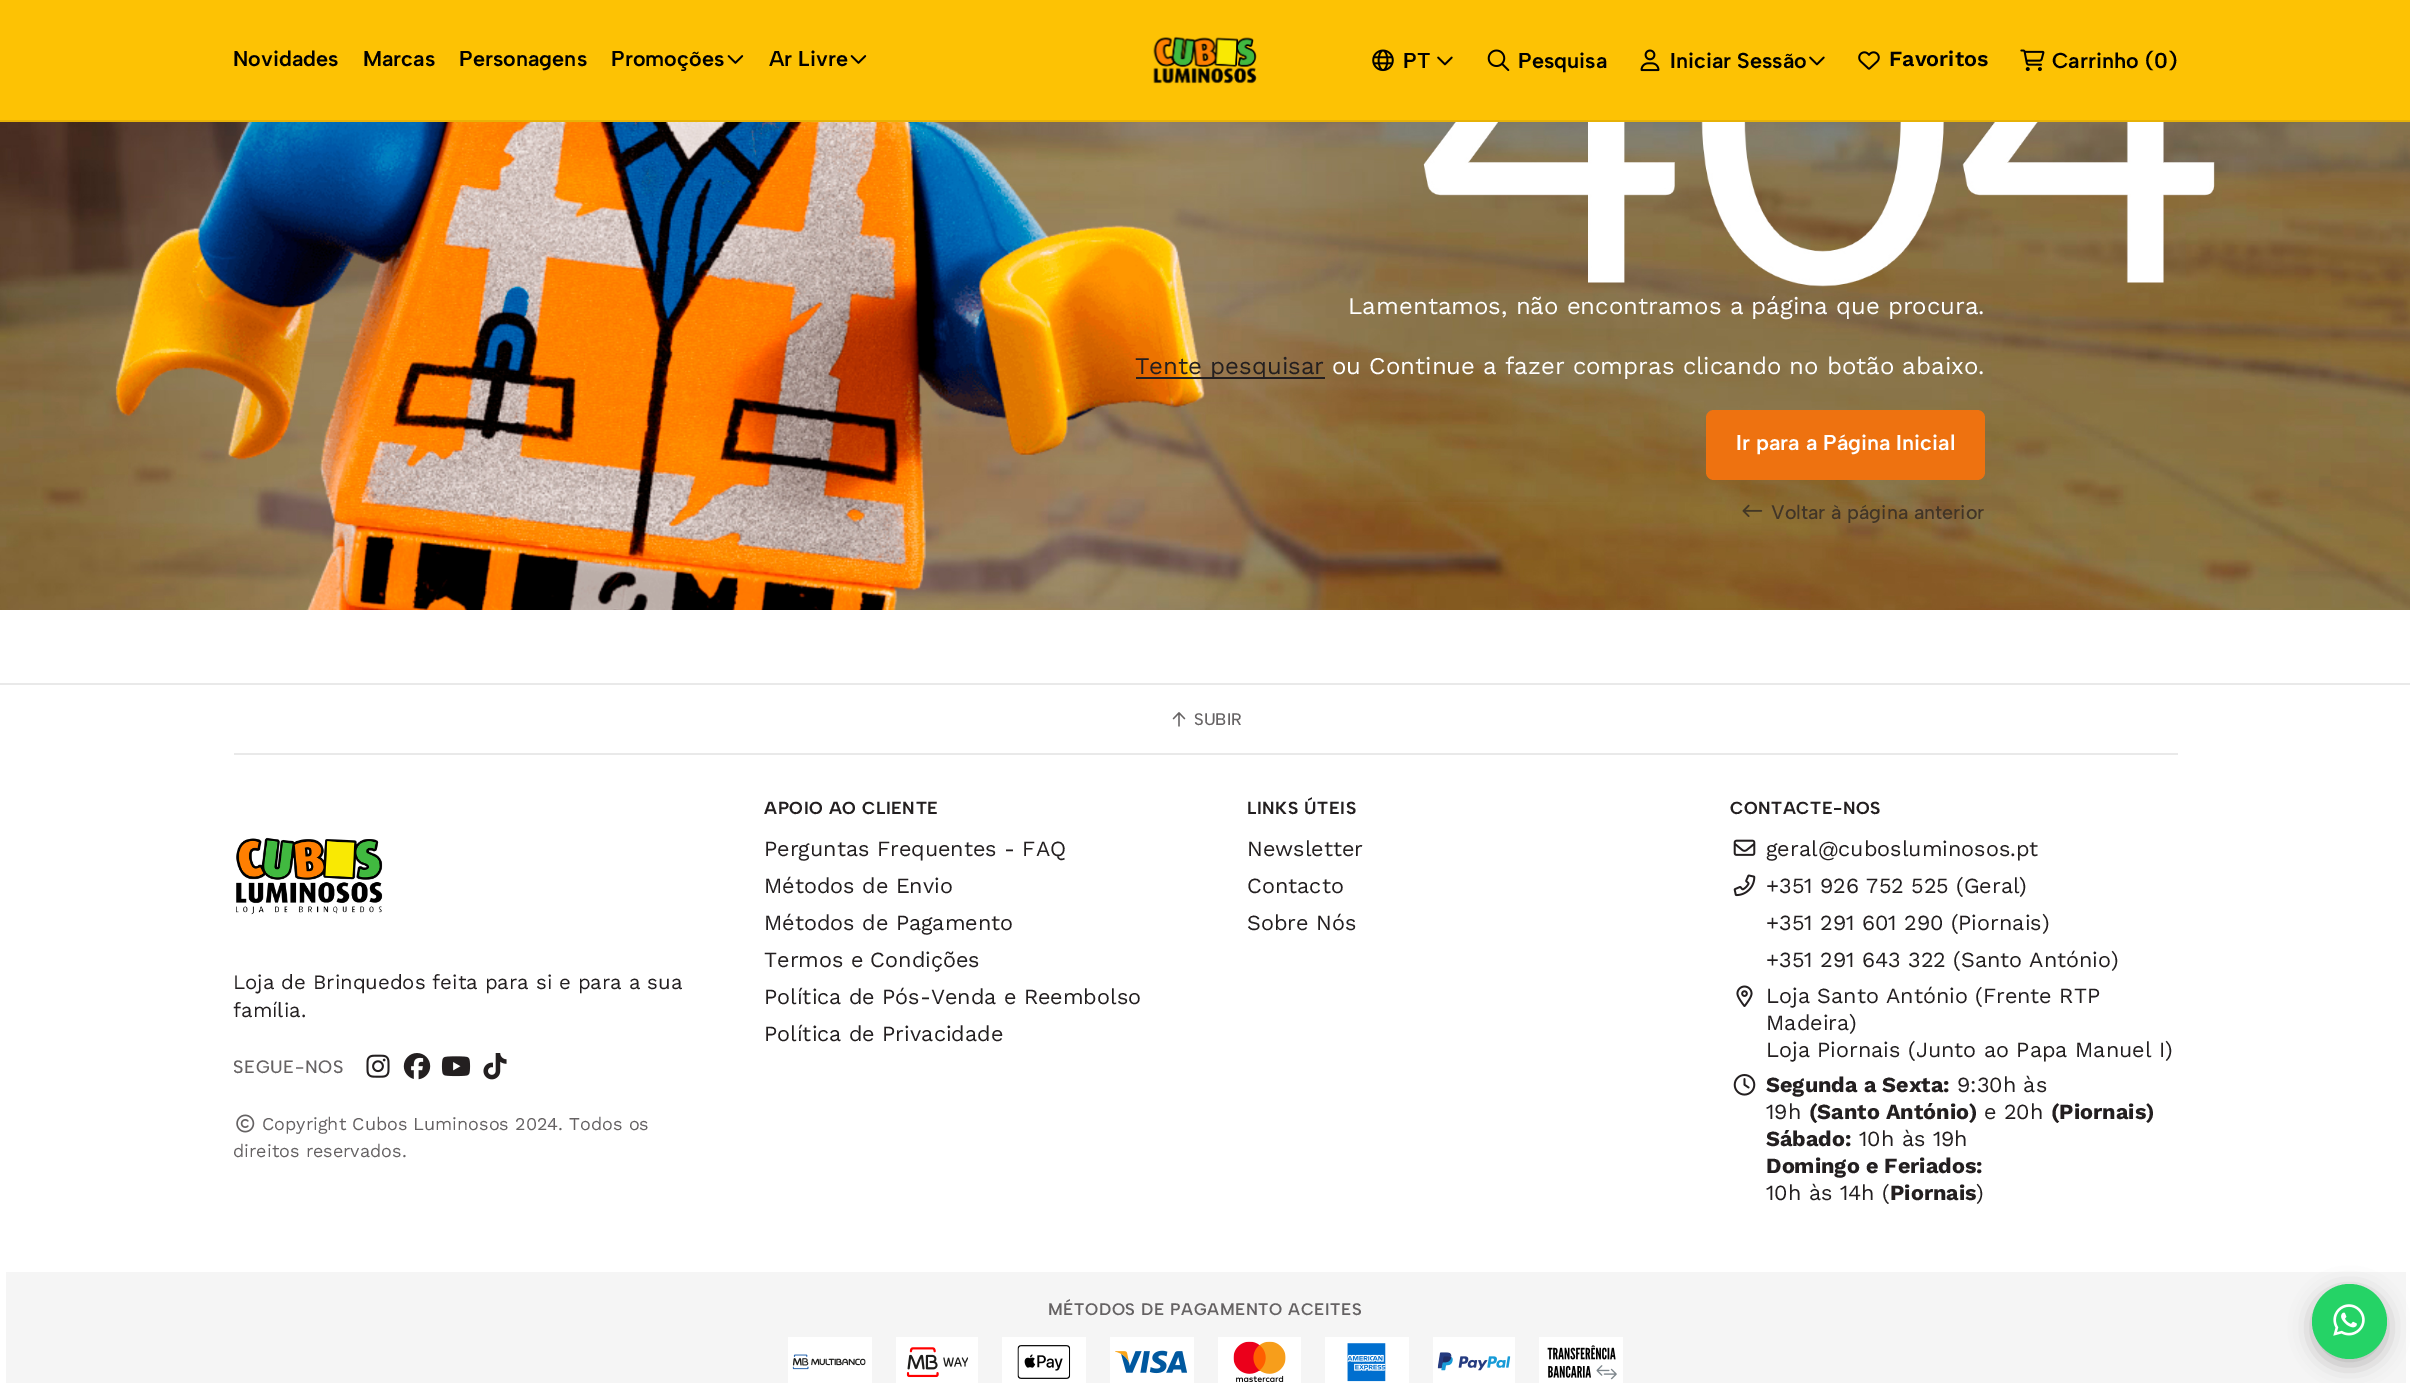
%!PS-Adobe-3.0
%%BoundingBox: 0 0 2410 1383
%%LanguageLevel: 3
%%Pages: 1
%%EndComments
%%BeginProlog
/setink { dup -16 bitshift 255 div exch dup -8 bitshift 255 and 255 div exch 255 and 255 div setrgbcolor } def
/usefont { [ exch dup neg 0 0 3 -1 roll 0 0 ] selectfont } def
/setalpha { dup .setfillconstantalpha .setstrokeconstantalpha } def
/disc { newpath 0 360 arc closepath } def
/rrect { 5 dict begin { /r /h /w /y /x } { exch def } forall
  x r add y moveto x w add y 2 copy h add r arct x w add y h add x 1 index r arct
  x y h add x y r arct x y 2 copy exch w add exch r arct closepath end } def
/softshadow { 12 dict begin { /a /b /q /h /w /y /x } { exch def } forall gsave /was 0 def
  9 -2 -9 { dup b mul 4 div /e exch def 1 sub .425 mul 2.718 exch exp 1 add a .99 .min exch div /now exch def
    1 1 now sub 1 was sub div sub setalpha /was now def
    w h .min e 2 mul add 0 gt { x e sub y e sub w e 2 mul add h e 2 mul add
      q e add b .6 mul add w h .min 2 div e add .min 0 .max rrect fill } if } for grestore end } def
/drawimage { 5 dict begin { /h /w /y /x /name } { exch def } forall
  gsave x y translate w h scale
  w h 8 [w 0 0 h 0 0] name (r) file false 3 colorimage grestore end } def
%%EndProlog
%%BeginSetup
<< /PageSize [2410 1383] /PageUsesTransparency true >> setpagedevice
%%EndSetup
%%Page: 1 1
0 .pushpdf14devicefilter
0 1383 translate 1 -1 scale
4 setmiterlimit
16#FFFFFF setink
0 0 2410 1383 rectfill
16#FDC204 setink
0 0 2410 120 rectfill
16#E7B207 setink
0 120 2410 2 rectfill
/AlbertSans-SemiBold 21.6 usefont
16#000000 setink
[
    [(Novidades) 233 66]
    [(Marcas) 363 66]
    [(Personagens) 459 66]
    [(Promoções) 611 66]
] { aload pop moveto show } forall
(img1.raw) 727 55 17 9 drawimage
769 66 moveto (Ar Livre) show
(img1.raw) 850 55 17 9 drawimage
(img2.raw) 1153 36 104 48 drawimage
(img3.raw) 1372 49 22 23 drawimage
1403 68 moveto (PT) show
(img4.raw) 1437 56 16 10 drawimage
(img5.raw) 1487 49 23 23 drawimage
1518 68 moveto (Pesquisa) show
(img6.raw) 1640 49 20 23 drawimage
1670 68 moveto (Iniciar Sessão) show
(img4.raw) 1809 56 16 10 drawimage
(img7.raw) 1858 51 22 19 drawimage
/WorkSans-SemiBold 21.6 usefont
1889 66 moveto (Favoritos) show
(img8.raw) 2020 49 25 23 drawimage
/AlbertSans-SemiBold 21.6 usefont
2052 68 moveto (Carrinho \(0\)) show
(img9.raw) 0 122 2410 488 drawimage
/WorkSans-Regular 24 usefont
16#FFFFFF setink
1348 314 moveto (Lamentamos, não encontramos a página que procura.) show
16#231F20 setink
1136 377 189 2 rectfill
1135 374 moveto (Tente pesquisar) show
16#FFFFFF setink
1332 374 moveto (ou Continue a fazer compras clicando no botão abaixo.) show
16#EE7210 setink
1706 410 279 70 8 rrect fill
/AlbertSans-SemiBold 21.6 usefont
16#FFFFFF setink
1736 450 moveto (Ir para a Página Inicial) show
(img10.raw) 1742 504 21 13 drawimage
/AlbertSans-Medium 19.75 usefont
16#413527 setink
1771 519 moveto (Voltar à página anterior) show
16#E9E9E9 setink
0 683 2410 2 rectfill
(img11.raw) 1172 712 14 15 drawimage
/AlbertSans-Medium 16.75 usefont
16#656263 setink
1194 725 moveto (SUBIR) show
16#E9E9E9 setink
234 753 1944 2 rectfill
(img12.raw) 236 837 147 78 drawimage
/WorkSans-Regular 20.4 usefont
16#231F20 setink
233 989 moveto (Loja de Brinquedos feita para si e para a sua) show
233 1017 moveto (família.) show
/AlbertSans-Medium 18 usefont
16#656263 setink
233 1073 moveto 0.6 0 (SEGUE-NOS) ashow
(img13.raw) 366 1054 24 24 drawimage
(img14.raw) 403 1053 28 27 drawimage
(img15.raw) 441 1056 30 21 drawimage
(img16.raw) 483 1053 24 27 drawimage
(img17.raw) 236 1114 19 19 drawimage
/WorkSans-Regular 18 usefont
262 1130 moveto (Copyright Cubos Luminosos 2024. Todos os) show
233 1157 moveto (direitos reservados.) show
/AlbertSans-Bold 17.5 usefont
16#231F20 setink
764 814 moveto 0.6 0 (APOIO AO CLIENTE) ashow
/WorkSans-Regular 21.6 usefont
[
    [(Perguntas Frequentes - FAQ) 764 856]
    [(Métodos de Envio) 764 893]
    [(Métodos de Pagamento) 764 930]
    [(Termos e Condições) 764 967]
    [(Política de Pós-Venda e Reembolso) 764 1004]
    [(Política de Privacidade) 764 1041]
] { aload pop moveto show } forall
/AlbertSans-Bold 17.5 usefont
1247 814 moveto 0.6 0 (LINKS ÚTEIS) ashow
/WorkSans-Regular 21.6 usefont
[
    [(Newsletter) 1247 856]
    [(Contacto) 1247 893]
    [(Sobre Nós) 1247 930]
] { aload pop moveto show } forall
/AlbertSans-Bold 17.5 usefont
1730 814 moveto 0.6 0 (CONTACTE-NOS) ashow
(img18.raw) 1733 839 23 17 drawimage
/WorkSans-Regular 21.6 usefont
1766 856 moveto (geral@cubosluminosos.pt) show
(img19.raw) 1733 874 23 23 drawimage
[
    [(+351 926 752 525 \(Geral\)) 1766 893]
    [(+351 291 601 290 \(Piornais\)) 1766 930]
    [(+351 291 643 322 \(Santo António\)) 1766 967]
] { aload pop moveto show } forall
(img20.raw) 1736 985 17 22 drawimage
[
    [(Loja Santo António \(Frente RTP) 1766 1003]
    [(Madeira\)) 1766 1030]
    [(Loja Piornais \(Junto ao Papa Manuel I\)) 1766 1057]
] { aload pop moveto show } forall
(img21.raw) 1733 1074 23 22 drawimage
/WorkSans-Bold 21.6 usefont
1766 1092 moveto (Segunda a Sexta:) show
/WorkSans-Regular 21.6 usefont
1957 1092 moveto (9:30h às) show
1766 1119 moveto (19h) show
/WorkSans-Bold 21.6 usefont
1809 1119 moveto (\(Santo António\)) show
/WorkSans-Regular 21.6 usefont
1984 1119 moveto (e 20h) show
/WorkSans-Bold 21.6 usefont
2051 1119 moveto (\(Piornais\)) show
1766 1146 moveto (Sábado:) show
/WorkSans-Regular 21.6 usefont
1859 1146 moveto (10h às 19h) show
/WorkSans-Bold 21.6 usefont
1766 1173 moveto (Domingo e Feriados:) show
/WorkSans-Regular 21.6 usefont
1766 1200 moveto (10h às 14h \() show
/WorkSans-Bold 21.6 usefont
1890 1200 moveto (Piornais) show
/WorkSans-Regular 21.6 usefont
1976 1200 moveto (\)) show
16#F5F5F5 setink
6 1272 2400 111 rectfill
/AlbertSans-SemiBold 16.75 usefont
16#656263 setink
1048 1315 moveto 0.6 0 (MÉTODOS DE PAGAMENTO ACEITES) ashow
(img22.raw) 788 1337 84 46 drawimage
(img23.raw) 896 1337 82 46 drawimage
(img24.raw) 1002 1337 84 46 drawimage
(img25.raw) 1110 1337 84 46 drawimage
(img26.raw) 1218 1337 83 46 drawimage
(img27.raw) 1325 1337 84 46 drawimage
(img28.raw) 1433 1337 82 46 drawimage
(img29.raw) 1539 1337 84 46 drawimage
16#231F20 setink
2312 1290 75 75 37.5 11 0.3 softshadow
16#25D366 setink
2349.5 1321.5 37.5 disc fill
(img30.raw) 2333 1304 32 32 drawimage
.poppdf14devicefilter showpage
%%EOF
